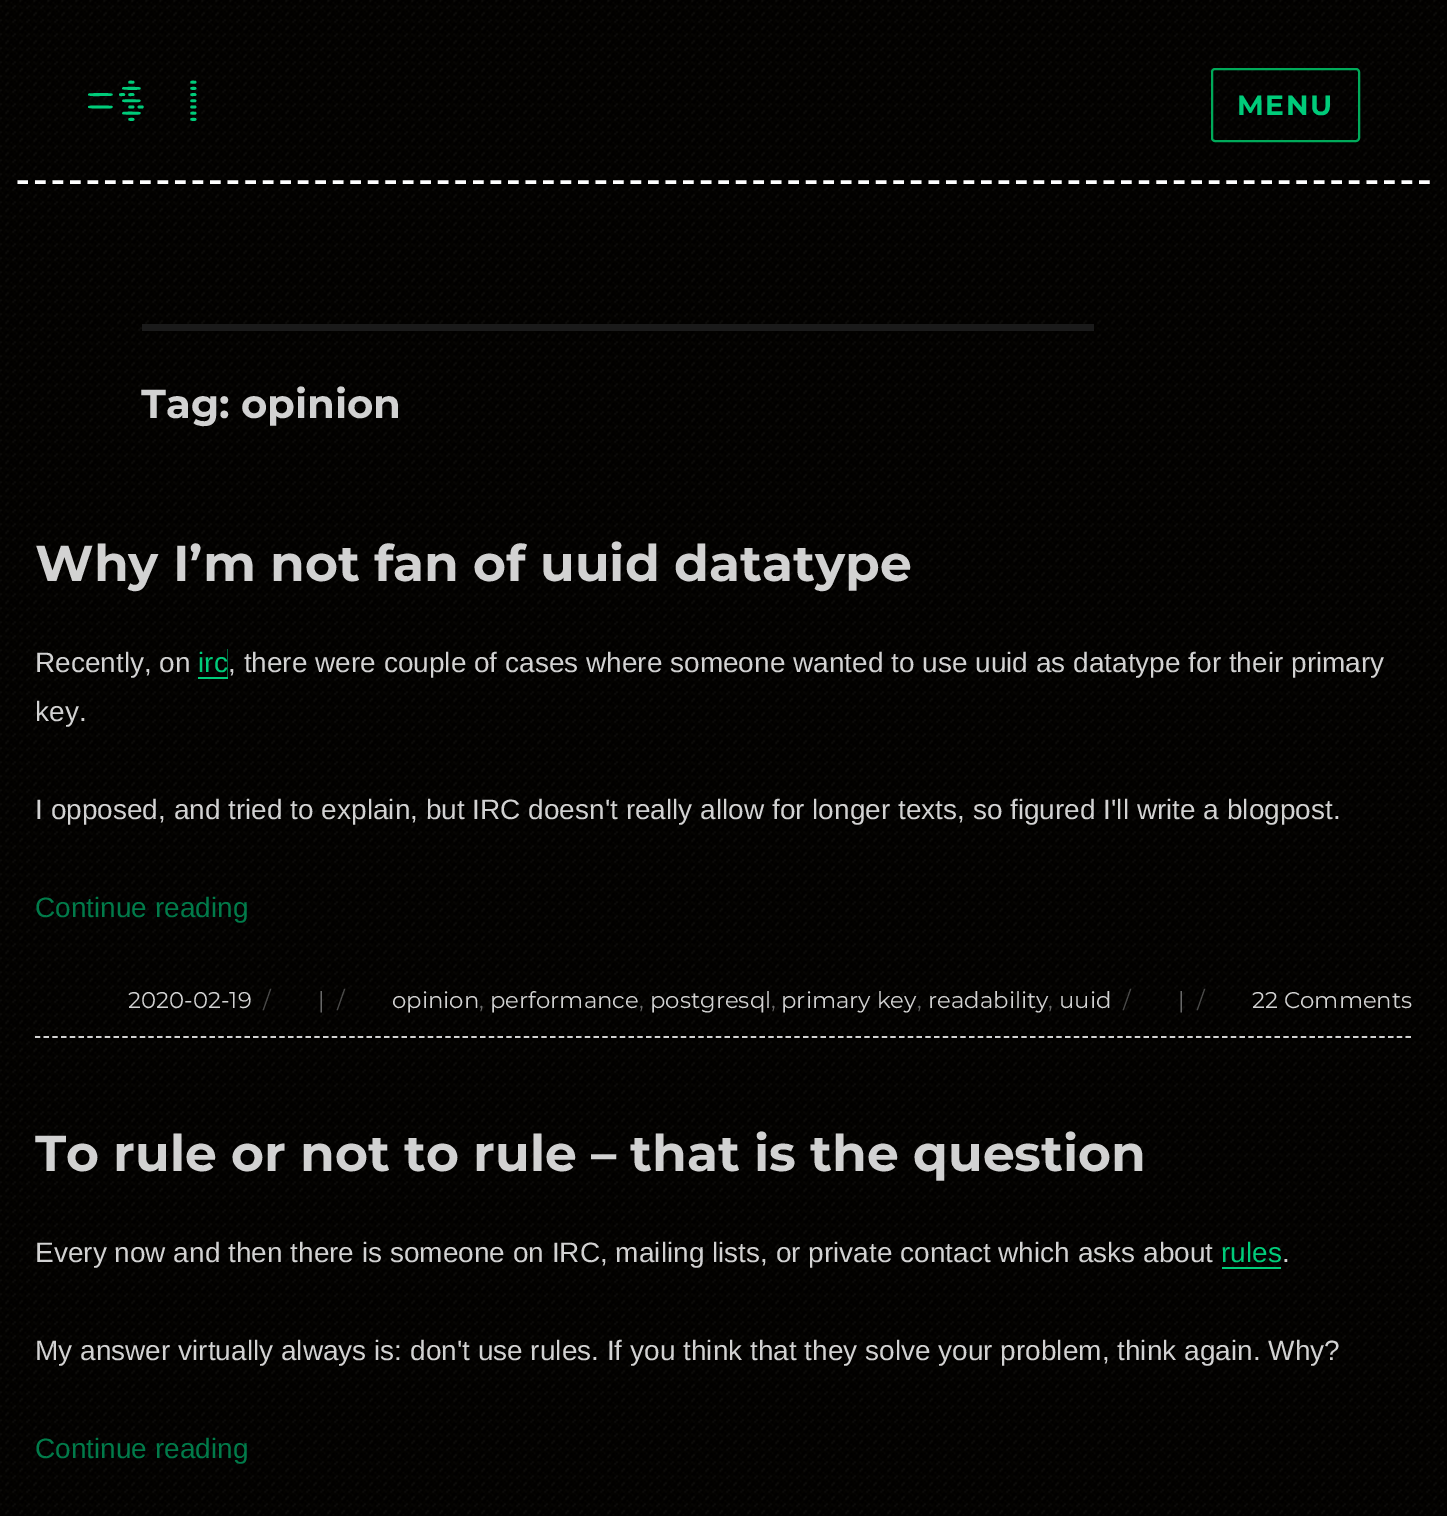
%!PS-Adobe-3.0
%%BoundingBox: 0 0 1447 1516
%%LanguageLevel: 3
%%Pages: 1
%%EndComments
%%BeginProlog
/setink { dup -16 bitshift 255 div exch dup -8 bitshift 255 and 255 div exch 255 and 255 div setrgbcolor } def
/usefont { [ exch dup neg 0 0 3 -1 roll 0 0 ] selectfont } def
/rrect { 5 dict begin { /r /h /w /y /x } { exch def } forall
  x r add y moveto x w add y 2 copy h add r arct x w add y h add x 1 index r arct
  x y h add x y r arct x y 2 copy exch w add exch r arct closepath end } def
/drawimage { 5 dict begin { /h /w /y /x /name } { exch def } forall
  gsave x y translate w h scale
  w h 8 [w 0 0 h 0 0] name (r) file false 3 colorimage grestore end } def
%%EndProlog
%%BeginSetup
<< /PageSize [1447 1516] >> setpagedevice
%%EndSetup
%%Page: 1 1
0 1516 translate 1 -1 scale
4 setmiterlimit
16#FFFFFF setink
0 0 1447 1516 rectfill
(img1.raw) 0 0 1447 1516 drawimage
/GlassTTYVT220-Medium 62 usefont
16#00CC7A setink
88 124 moveto (=$ |) show
16#00AA5A setink
2 setlinewidth
1212 69 147 72 3 rrect stroke
/Montserrat-Thin 28 usefont
16#00CC7A setink
1237 115 moveto 1.5 0 (MENU) ashow
16#FFFFFF setink
3.5 setlinewidth
[10.5 7.02] 0 setdash
17.5 182 moveto 1430 182 lineto stroke
16#1A1A1A setink
142 324 952 7 rectfill
/Montserrat-Thin 40.25 usefont
16#D2D2D2 setink
141 418 moveto (Tag: opinion) show
1.8 setlinewidth
[5.25 3.48] 0 setdash
35 1037 moveto 1412 1037 lineto stroke
/Montserrat-Thin 50.4 usefont
35 581 moveto (Why I’m not fan of uuid datatype) show
/LiberationSans-Regular 28 usefont
35 672 moveto (Recently, on) show
16#00CC7A setink
198 677 moveto 198 679 lineto 228 679 lineto 228 649 lineto 227.5 649 lineto 227.5 677 lineto closepath fill
198 672 moveto (irc) show
16#D2D2D2 setink
[
    [(, there were couple of cases where someone wanted to use uuid as datatype for their primary) 228 672]
    [(key.) 35 721]
    [(I opposed, and tried to explain, but IRC doesn't really allow for longer texts, so figured I'll write a blogpost.) 35 819]
] { aload pop moveto show } forall
16#017B4A setink
35 917 moveto (Continue reading) show
/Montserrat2-Thin 22.75 usefont
16#D2D2D2 setink
128 1008 moveto (2020-02-19) show
16#4A4A49 setink
263 1008 moveto (/) show
16#686868 setink
318 1008 moveto (|) show
16#4A4A49 setink
337 1008 moveto (/) show
16#D2D2D2 setink
392 1008 moveto (opinion) show
16#686868 setink
479 1008 moveto (,) show
16#D2D2D2 setink
490 1008 moveto (performance) show
16#686868 setink
639 1008 moveto (,) show
16#D2D2D2 setink
650 1008 moveto (postgresql) show
16#686868 setink
771 1008 moveto (,) show
16#D2D2D2 setink
781 1008 moveto (primary key) show
16#686868 setink
917 1008 moveto (,) show
16#D2D2D2 setink
928 1008 moveto (readability) show
16#686868 setink
1048 1008 moveto (,) show
16#D2D2D2 setink
1059 1008 moveto (uuid) show
16#4A4A49 setink
1123 1008 moveto (/) show
16#686868 setink
1178 1008 moveto (|) show
16#4A4A49 setink
1197 1008 moveto (/) show
16#D2D2D2 setink
1252 1008 moveto (22 Comments) show
/Montserrat-Thin 50.4 usefont
35 1171 moveto (To rule or not to rule – that is the question) show
/LiberationSans-Regular 28 usefont
35 1262 moveto (Every now and then there is someone on IRC, mailing lists, or private contact which asks about) show
16#00CC7A setink
1221 1262 moveto (rules) show
1222 1267 59 2 rectfill
16#D2D2D2 setink
1282 1262 moveto (.) show
35 1360 moveto (My answer virtually always is: don't use rules. If you think that they solve your problem, think again. Why?) show
16#017B4A setink
35 1458 moveto (Continue reading) show
showpage
%%EOF
